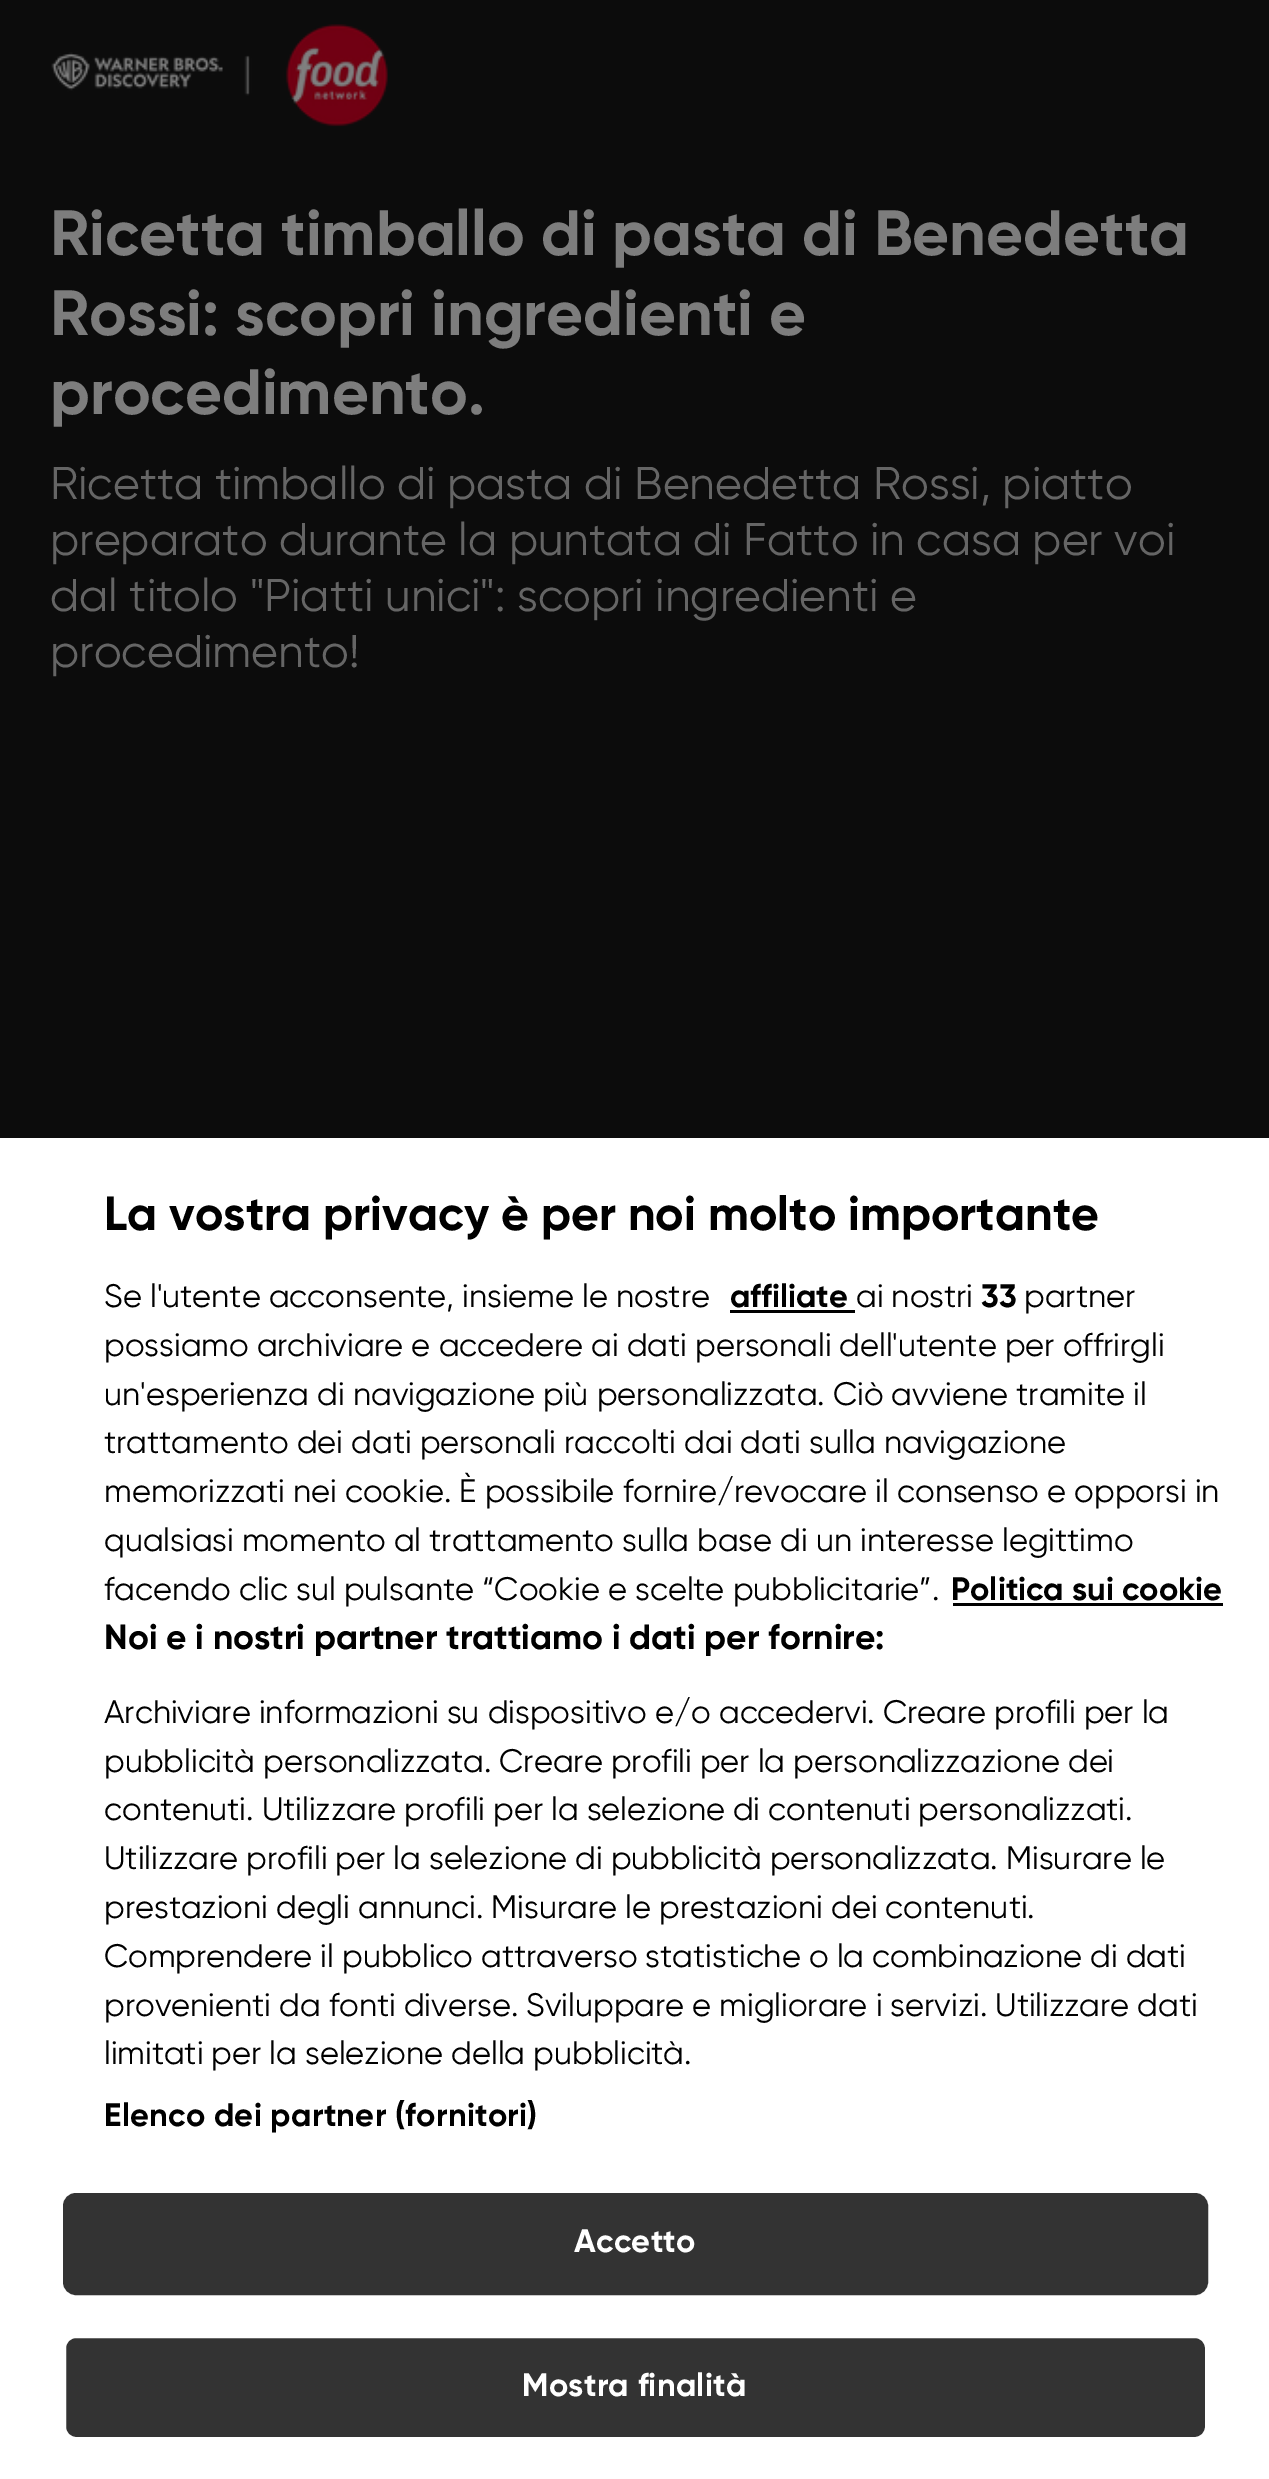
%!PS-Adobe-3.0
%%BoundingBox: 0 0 1269 2479
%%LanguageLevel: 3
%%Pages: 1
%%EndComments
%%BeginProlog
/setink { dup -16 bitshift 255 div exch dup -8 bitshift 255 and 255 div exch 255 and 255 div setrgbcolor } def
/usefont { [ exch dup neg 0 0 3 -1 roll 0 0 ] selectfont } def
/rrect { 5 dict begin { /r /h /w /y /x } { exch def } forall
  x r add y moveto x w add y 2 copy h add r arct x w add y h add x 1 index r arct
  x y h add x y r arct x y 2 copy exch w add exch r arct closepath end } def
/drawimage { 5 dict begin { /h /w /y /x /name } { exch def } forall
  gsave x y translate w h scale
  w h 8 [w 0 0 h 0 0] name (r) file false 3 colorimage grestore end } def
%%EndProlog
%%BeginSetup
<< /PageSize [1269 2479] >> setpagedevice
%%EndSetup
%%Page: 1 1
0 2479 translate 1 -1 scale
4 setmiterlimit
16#0C0C0C setink
0 0 1269 2479 rectfill
(img1.raw) 51 24 337 103 drawimage
/Gilroy-Regular 63.75 usefont
16#7D7D7D setink
[
    [(Ricetta timballo di pasta di Benedetta) 50 255]
    [(Rossi: scopri ingredienti e) 50 335]
    [(procedimento.) 50 414]
] { aload pop moveto show } forall
/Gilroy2-Regular 45.9 usefont
16#656565 setink
[
    [(Ricetta timballo di pasta di Benedetta Rossi, piatto) 50 499]
    [(preparato durante la puntata di Fatto in casa per voi) 50 555]
    [(dal titolo "Piatti unici": scopri ingredienti e) 50 611]
    [(procedimento!) 50 667]
] { aload pop moveto show } forall
16#FFFFFF setink
0 1138 1269 1341 rectfill
/Gilroy-Regular 48 usefont
16#000000 setink
104 1230 moveto (La vostra privacy è per noi molto importante) show
/Gilroy2-Regular 32.5 usefont
104 1307 moveto (Se l'utente acconsente, insieme le nostre) show
/Gilroy-Regular 32.5 usefont
730 1307 moveto (affiliate) show
730 1310 125 3 rectfill
/Gilroy2-Regular 32.5 usefont
856 1307 moveto (ai nostri) show
/Gilroy-Regular 32.5 usefont
981 1307 moveto (33) show
/Gilroy2-Regular 32.5 usefont
[
    [(partner) 1024 1307]
    [(possiamo archiviare e accedere ai dati personali dell'utente per offrirgli) 104 1356]
    [(un'esperienza di navigazione più personalizzata. Ciò avviene tramite il) 104 1405]
    [(trattamento dei dati personali raccolti dai dati sulla navigazione) 104 1453]
    [(memorizzati nei cookie. È possibile fornire/revocare il consenso e opporsi in) 104 1502]
    [(qualsiasi momento al trattamento sulla base di un interesse legittimo) 104 1551]
    [(facendo clic sul pulsante “Cookie e scelte pubblicitarie”.) 104 1600]
] { aload pop moveto show } forall
/Gilroy-Regular 32.5 usefont
951 1600 moveto (Politica sui cookie) show
953 1603 270 3 rectfill
/Gilroy-Regular 35.2 usefont
104 1649 moveto (Noi e i nostri partner trattiamo i dati per fornire:) show
/Gilroy2-Regular 32.5 usefont
[
    [(Archiviare informazioni su dispositivo e/o accedervi. Creare profili per la) 104 1723]
    [(pubblicità personalizzata. Creare profili per la personalizzazione dei) 104 1772]
    [(contenuti. Utilizzare profili per la selezione di contenuti personalizzati.) 104 1820]
    [(Utilizzare profili per la selezione di pubblicità personalizzata.) 104 1869]
    [(Misurare le) 1006 1869]
    [(prestazioni degli annunci. Misurare le prestazioni dei contenuti.) 104 1918]
    [(Comprendere il pubblico attraverso statistiche o la combinazione di dati) 104 1967]
    [(provenienti da fonti diverse. Sviluppare e migliorare i servizi. Utilizzare dati) 104 2016]
    [(limitati per la selezione della pubblicità.) 104 2064]
] { aload pop moveto show } forall
/Gilroy-Regular 32.5 usefont
104 2126 moveto 0.3 0 (Elenco dei partner \(fornitori\)) ashow
16#333333 setink
64.5 2194.5 1142 99 11.5 rrect gsave fill grestore
3 setlinewidth
stroke
16#FFFFFF setink
574 2252 moveto 0.3 0 (Accetto) ashow
16#333333 setink
64.5 2336.5 1142 102 11.5 rrect gsave fill grestore
16#FFFFFF setink
stroke
522 2396 moveto 0.3 0 (Mostra finalità) ashow
showpage
%%EOF
